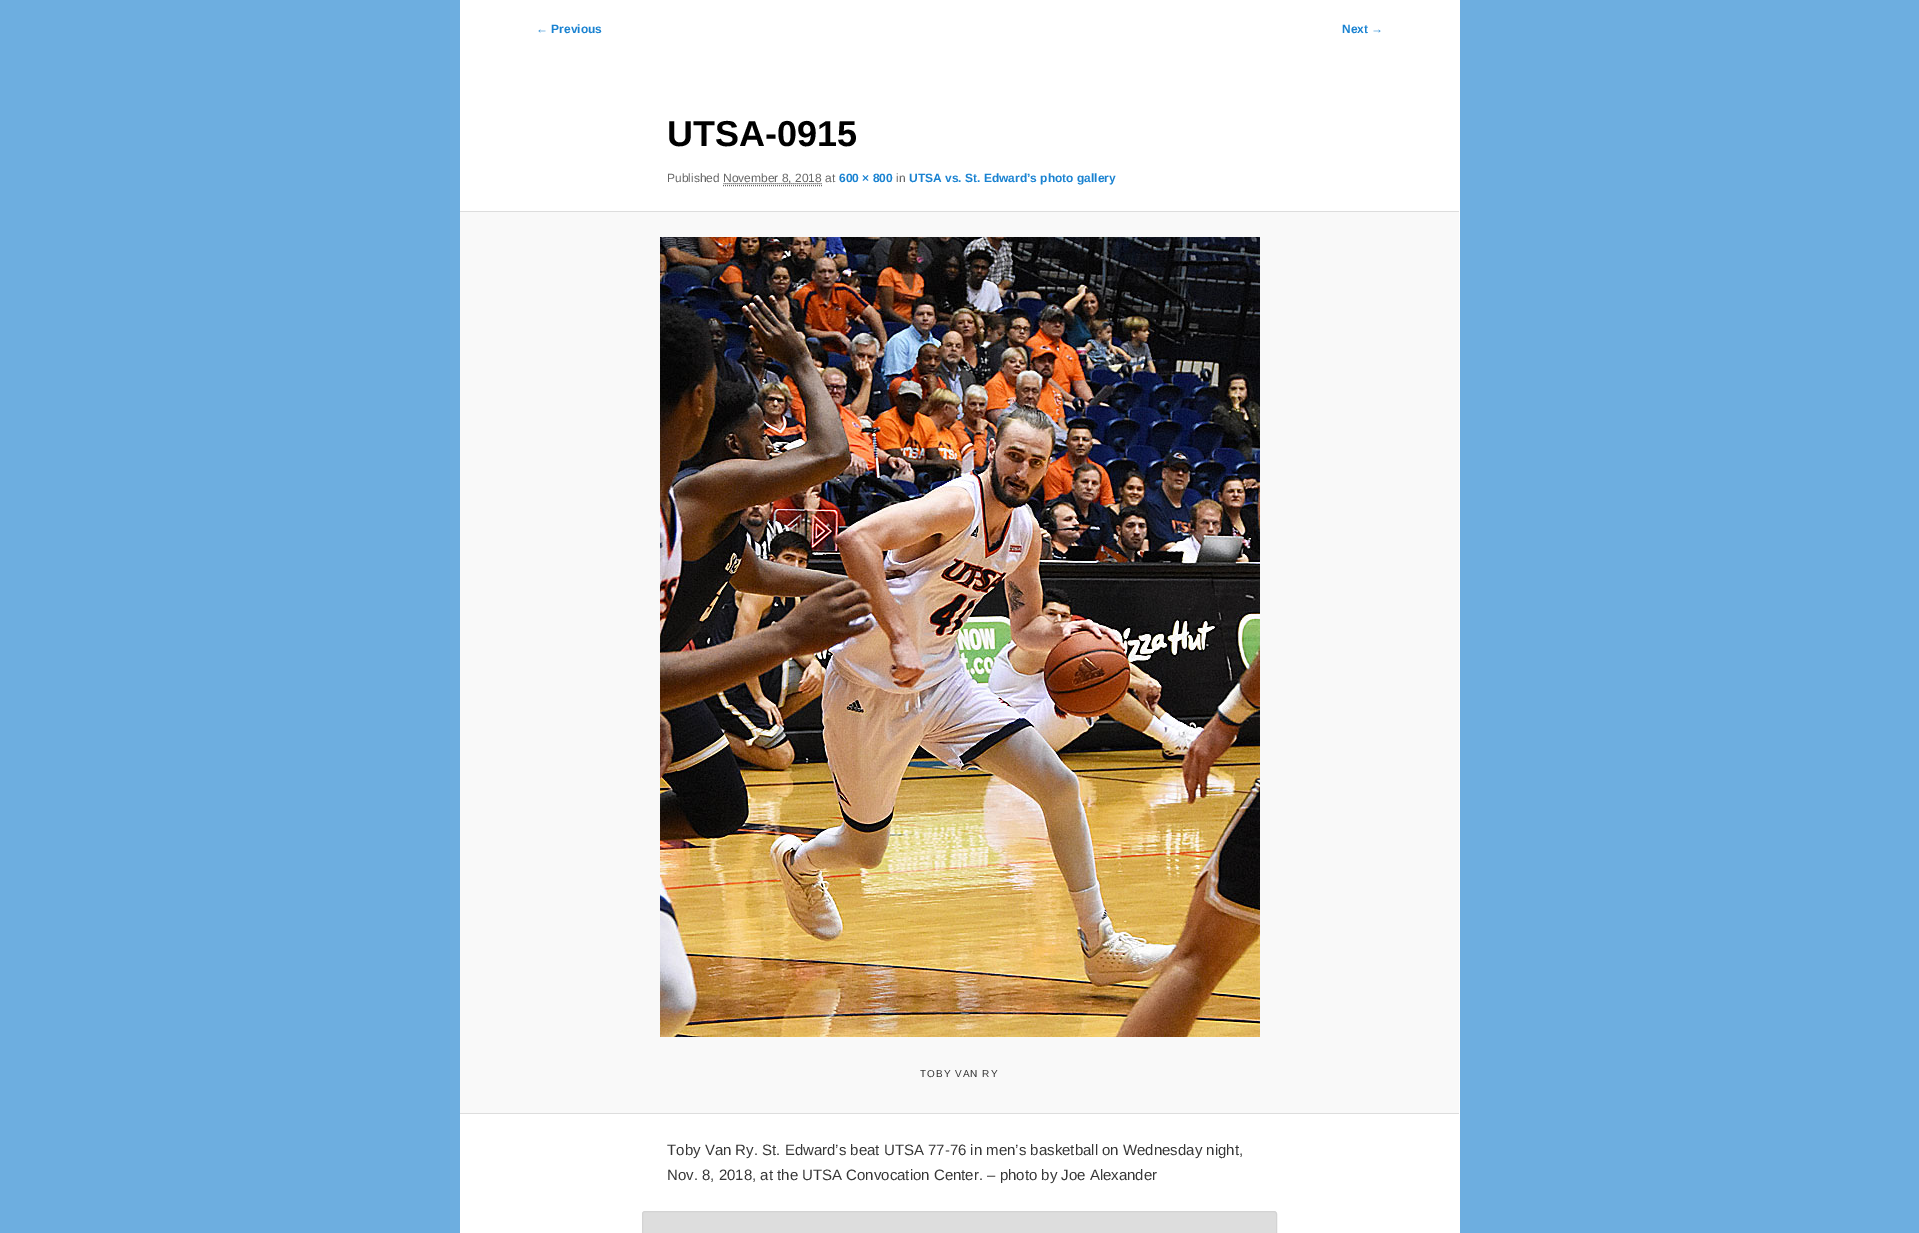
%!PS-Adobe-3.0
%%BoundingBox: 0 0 1919 1233
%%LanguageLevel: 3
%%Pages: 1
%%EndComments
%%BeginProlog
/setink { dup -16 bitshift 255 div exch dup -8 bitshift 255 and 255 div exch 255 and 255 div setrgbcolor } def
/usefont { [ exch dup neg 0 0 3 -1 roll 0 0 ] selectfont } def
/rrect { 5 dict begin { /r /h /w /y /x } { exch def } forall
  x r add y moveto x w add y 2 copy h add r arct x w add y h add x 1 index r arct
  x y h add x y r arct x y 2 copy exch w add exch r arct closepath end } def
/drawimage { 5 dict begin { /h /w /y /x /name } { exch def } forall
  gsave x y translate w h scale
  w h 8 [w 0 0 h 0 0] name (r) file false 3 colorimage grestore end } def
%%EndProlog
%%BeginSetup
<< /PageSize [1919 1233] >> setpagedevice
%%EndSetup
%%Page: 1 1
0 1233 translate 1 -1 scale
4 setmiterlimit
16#6DAEE0 setink
0 0 1919 1233 rectfill
16#FFFFFF setink
460 0 1000 1233 rectfill
/LiberationSans-Bold 12 usefont
16#1982D1 setink
536 33 moveto (← Previous) show
1342 33 moveto (Next →) show
/LiberationSans-Bold 36 usefont
16#000000 setink
667 146 moveto (UTSA-0915) show
/LiberationSans-Regular 12 usefont
16#666666 setink
667 182 moveto (Published) show
[1 1] 0 setdash
723.5 183.5 moveto 822 183.5 lineto stroke
723 182 moveto (November 8, 2018 at) show
723 185.5 moveto 822 185.5 lineto stroke
/LiberationSans-Bold 12 usefont
16#1982D1 setink
839 182 moveto (600 × 800) show
/LiberationSans-Regular 12 usefont
16#666666 setink
896 182 moveto (in) show
/LiberationSans-Bold 12 usefont
16#1982D1 setink
909 182 moveto (UTSA vs. St. Edward’s photo gallery) show
[
    [460 212 999 901 16#F9F9F9]
    [460 211 999 1 16#DDDDDD]
    [460 1113 999 1 16#DDDDDD]
] { aload pop setink rectfill } forall
(img1.raw) 660 237 600 800 drawimage
/LiberationSans-Regular 10 usefont
16#373737 setink
920 1077 moveto 1 0 (TOBY VAN RY) ashow
/LiberationSans-Regular 15 usefont
667 1155 moveto (Toby Van Ry. St. Edward’s beat UTSA 77-76 in men’s basketball on Wednesday night,) show
667 1180 moveto (Nov. 8, 2018, at the UTSA Convocation Center. – photo by Joe Alexander) show
16#DDDDDD setink
642.5 1211.5 634 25 2.5 rrect gsave fill grestore
16#D3D3D3 setink
[] 0 setdash
stroke
showpage
%%EOF
